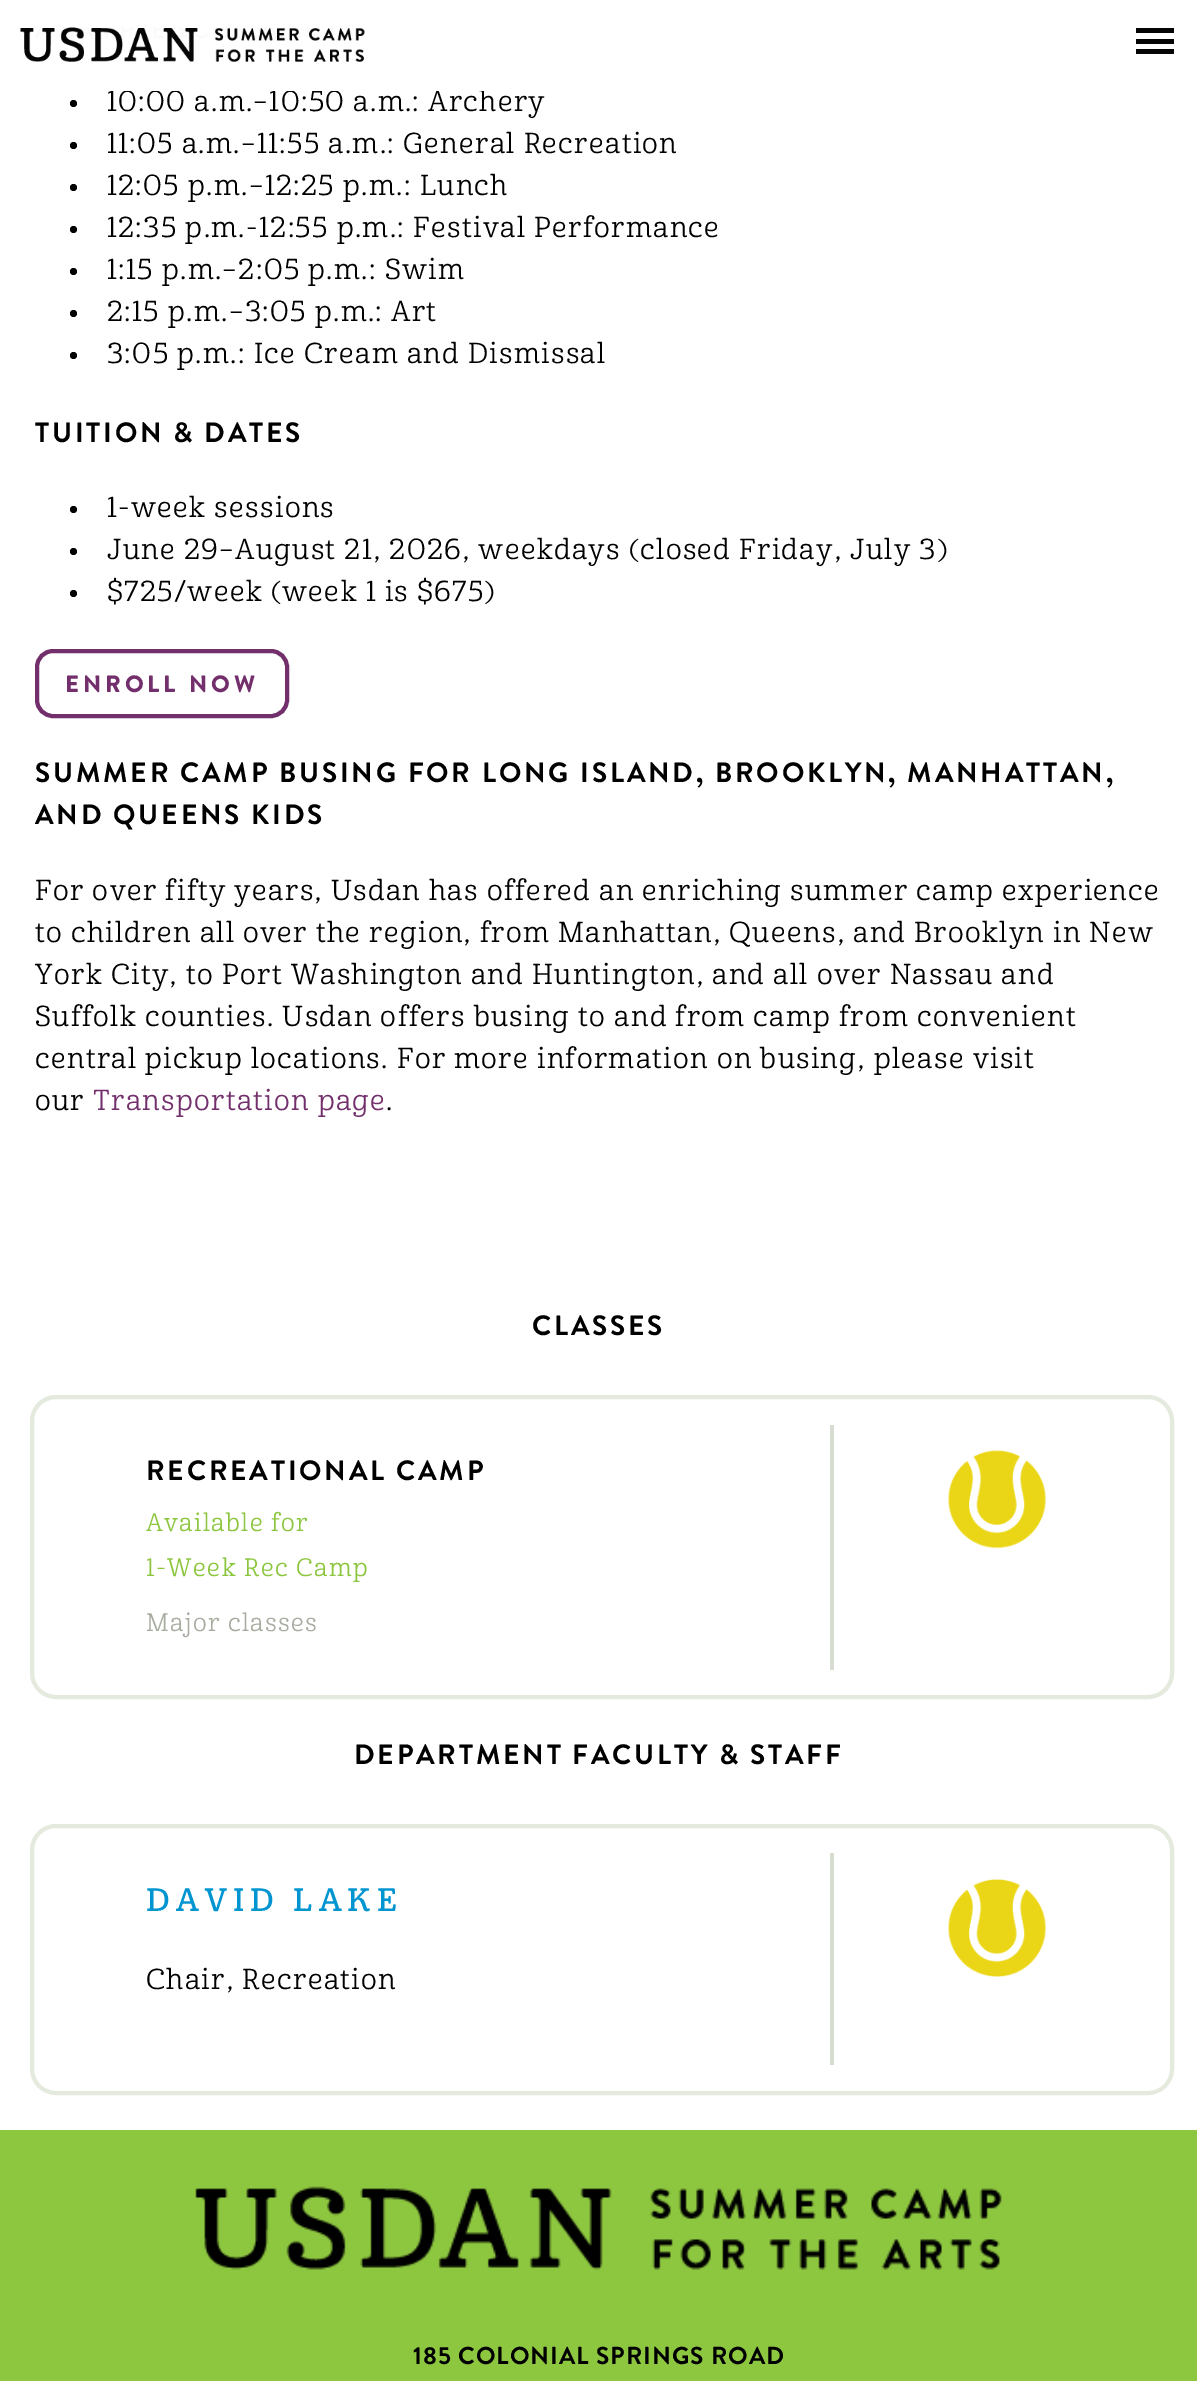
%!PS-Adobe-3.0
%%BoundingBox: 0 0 1197 2381
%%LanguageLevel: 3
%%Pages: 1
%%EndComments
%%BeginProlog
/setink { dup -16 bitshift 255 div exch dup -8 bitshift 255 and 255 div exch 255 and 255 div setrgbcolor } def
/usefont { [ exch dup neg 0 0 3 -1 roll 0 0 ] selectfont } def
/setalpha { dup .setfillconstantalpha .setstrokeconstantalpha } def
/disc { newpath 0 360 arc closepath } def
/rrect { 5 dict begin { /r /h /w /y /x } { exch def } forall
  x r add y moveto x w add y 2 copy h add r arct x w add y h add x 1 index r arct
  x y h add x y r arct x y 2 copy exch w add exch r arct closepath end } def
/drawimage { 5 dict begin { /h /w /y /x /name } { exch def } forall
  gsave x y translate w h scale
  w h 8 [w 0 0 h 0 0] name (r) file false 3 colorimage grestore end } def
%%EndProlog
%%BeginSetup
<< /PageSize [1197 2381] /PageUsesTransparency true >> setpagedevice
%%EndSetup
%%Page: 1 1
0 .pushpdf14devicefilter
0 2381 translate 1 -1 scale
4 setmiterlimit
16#FFFFFF setink
0 0 1197 2381 rectfill
/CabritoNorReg-Regular 28 usefont
16#000000 setink
107 111 moveto 1.4 0 (10:00 a.m.–10:50 a.m.: Archery) ashow
0.98 setalpha
16#FFFFFF setink
111 89 374 2 rectfill
1 setalpha
(img1.raw) 20 27 345 35 drawimage
[
    [1136 28 38 5 16#050505]
    [1136 39 38 5 16#050505]
    [1136 49 38 5 16#050505]
] { aload pop setink rectfill } forall
16#000000 setink
73.5 103.5 3.5 disc fill
73.5 145.5 3.5 disc fill
107 153 moveto 1.4 0 (11:05 a.m.–11:55 a.m.: General Recreation) ashow
73.5 187.5 3.5 disc fill
107 195 moveto 1.4 0 (12:05 p.m.–12:25 p.m.: Lunch) ashow
73.5 229.5 3.5 disc fill
107 237 moveto 1.4 0 (12:35 p.m.-12:55 p.m.: Festival Performance) ashow
73.5 271.5 3.5 disc fill
107 279 moveto 1.4 0 (1:15 p.m.–2:05 p.m.: Swim) ashow
73.5 313.5 3.5 disc fill
107 321 moveto 1.4 0 (2:15 p.m.–3:05 p.m.: Art) ashow
73.5 355.5 3.5 disc fill
107 363 moveto 1.4 0 (3:05 p.m.: Ice Cream and Dismissal) ashow
/BrandonGrotesque-Bold 28 usefont
35 442 moveto 2.8 0 (TUITION & DATES) ashow
73.5 509.5 3.5 disc fill
/CabritoNorReg-Regular 28 usefont
107 517 moveto 1.4 0 (1-week sessions) ashow
73.5 551.5 3.5 disc fill
107 559 moveto 1.4 0 (June 29–August 21, 2026, weekdays \(closed Friday, July 3\)) ashow
73.5 593.5 3.5 disc fill
107 601 moveto 1.4 0 ($725/week \(week 1 is $675\)) ashow
16#722F6B setink
4 setlinewidth
37 651 250 65 16 rrect stroke
/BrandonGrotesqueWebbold-Bold 22.75 usefont
65 692 moveto 4.5 0 (ENROLL NOW) ashow
/BrandonGrotesque-Bold 28 usefont
16#000000 setink
35 782 moveto 2.8 0 (SUMMER CAMP BUSING FOR LONG ISLAND, BROOKLYN, MANHATTAN,) ashow
35 824 moveto 2.8 0 (AND QUEENS KIDS) ashow
/CabritoNorReg-Regular 28 usefont
35 900 moveto 1.4 0 (For over fifty years, Usdan has offered an enriching summer camp experience) ashow
35 942 moveto 1.4 0 (to children all over the region, from Manhattan, Queens, and Brooklyn in New) ashow
35 984 moveto 1.4 0 (York City, to Port Washington and Huntington, and all over Nassau and) ashow
35 1026 moveto 1.4 0 (Suffolk counties. Usdan offers busing to and from camp from convenient) ashow
35 1068 moveto 1.4 0 (central pickup locations. For more information on busing, please visit) ashow
35 1110 moveto 1.4 0 (our) ashow
16#722F6B setink
93 1110 moveto 1.4 0 (Transportation page) ashow
16#000000 setink
386 1110 moveto 1.4 0 (.) ashow
/BrandonGrotesque-Bold 28 usefont
532 1335 moveto 2.8 0 (CLASSES) ashow
16#E5EADE setink
32 1397 1140 300 24 rrect stroke
16#D8DDD1 setink
830 1425 4 245 rectfill
16#000000 setink
146 1480 moveto 2.8 0 (RECREATIONAL CAMP) ashow
/CabritoNorReg-Regular 24.5 usefont
16#8CC63E setink
146 1531 moveto 1.4 0 (Available for) ashow
146 1576 moveto 1.4 0 (1-Week Rec Camp) ashow
16#A7ACA0 setink
146 1631 moveto 1.4 0 (Major classes) ashow
(img2.raw) 948 1450 98 99 drawimage
/BrandonGrotesque-Bold 28 usefont
16#000000 setink
354 1764 moveto 2.8 0 (DEPARTMENT FACULTY & STAFF) ashow
16#E5EADE setink
32 1826 1140 267 24 rrect stroke
16#D8DDD1 setink
830 1853 4 212 rectfill
/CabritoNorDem-Regular 31.5 usefont
16#0094D0 setink
146 1911 moveto 6.25 0 (DAVID LAKE) ashow
/CabritoNorReg-Regular 28 usefont
16#000000 setink
146 1989 moveto 1.4 0 (Chair, Recreation) ashow
(img3.raw) 948 1879 98 98 drawimage
16#8DC63F setink
0 2130 1197 251 rectfill
(img4.raw) 195 2186 807 84 drawimage
/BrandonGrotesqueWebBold-Regular 24.5 usefont
16#000000 setink
413 2364 moveto 1 0 (185 COLONIAL SPRINGS ROAD) ashow
.poppdf14devicefilter showpage
%%EOF
